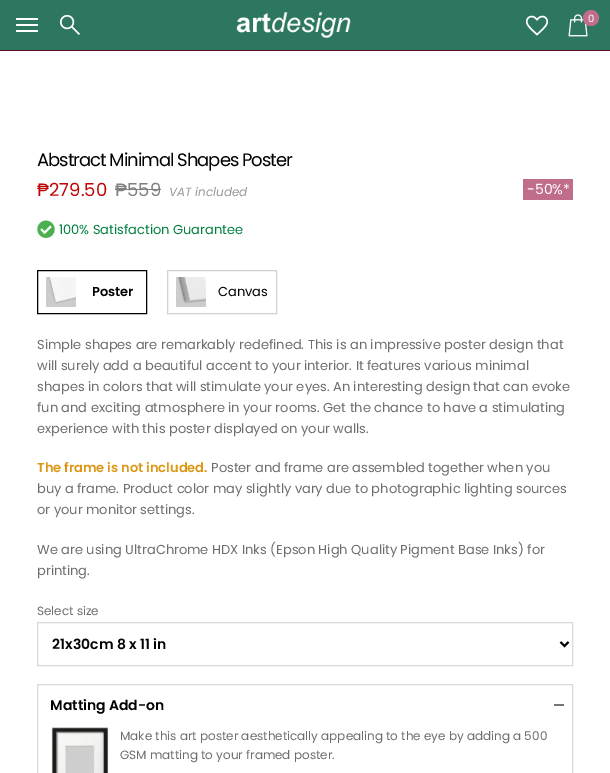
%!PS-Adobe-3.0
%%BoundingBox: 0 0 610 773
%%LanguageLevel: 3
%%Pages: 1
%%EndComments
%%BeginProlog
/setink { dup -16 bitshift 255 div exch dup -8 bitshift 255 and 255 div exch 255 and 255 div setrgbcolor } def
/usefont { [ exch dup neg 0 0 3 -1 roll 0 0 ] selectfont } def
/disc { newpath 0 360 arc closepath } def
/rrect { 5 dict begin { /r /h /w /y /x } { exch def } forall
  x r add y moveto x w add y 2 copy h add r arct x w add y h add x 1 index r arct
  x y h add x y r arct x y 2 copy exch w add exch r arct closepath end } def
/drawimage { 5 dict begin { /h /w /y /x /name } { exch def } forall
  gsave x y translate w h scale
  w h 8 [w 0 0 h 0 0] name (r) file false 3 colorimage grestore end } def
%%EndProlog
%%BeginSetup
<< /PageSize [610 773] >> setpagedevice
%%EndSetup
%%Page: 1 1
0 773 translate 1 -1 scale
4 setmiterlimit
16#FFFFFF setink
0 0 610 773 rectfill
16#2D765F setink
0 0 610 50 rectfill
(img1.raw) 60 14 20 21 drawimage
(img2.raw) 236 12 115 26 drawimage
(img3.raw) 525 15 24 21 drawimage
(img4.raw) 568 14 20 23 drawimage
16#BF6D8B setink
591 18 8 disc fill
/Poppins-Regular 10 usefont
16#FFFFFF setink
588 22 moveto (0) show
16#600E2C setink
0 50 610 1 rectfill
16#FFFFFF setink
16 18 22 2 1 rrect fill
16 24 22 2 1 rrect fill
16 30 22 2 1 rrect fill
/Poppins-Regular 18 usefont
16#000000 setink
37 166 moveto -1 0 (Abstract Minimal Shapes Poster) ashow
/LiberationSans-Regular 18 usefont
16#BB0707 setink
37 196 moveto (₱) show
/Poppins-Regular 18 usefont
49 196 moveto (279.50) show
/LiberationSans-Regular 18 usefont
16#808080 setink
115 196 moveto (₱) show
115 189 12 1 rectfill
127 189 34 1 rectfill
/Poppins-Regular 18 usefont
127 196 moveto (559) show
/Poppins-Italic 12 usefont
16#999999 setink
169 196 moveto (VAT included) show
16#BF6D8B setink
523 179 50 21 rectfill
/Poppins-Regular 14 usefont
16#FFFFFF setink
527 194 moveto (-50%*) show
(img5.raw) 37 220 18 18 drawimage
/Poppins-Regular 13 usefont
16#007F3F setink
59 234 moveto (100% Satisfaction Guarantee) show
16#000000 setink
37.5 270.5 109 43 rectstroke
(img6.raw) 46 277 30 30 drawimage
/Poppins-SemiBold 13 usefont
92 296 moveto (Poster) show
16#D1D1D1 setink
167.5 270.5 109 43 rectstroke
(img7.raw) 176 277 30 30 drawimage
/Poppins-Regular 13 usefont
16#000000 setink
218 296 moveto (Canvas) show
16#6D6D6D setink
[
    [(Simple shapes are remarkably redefined. This is an impressive poster design that) 37 349]
    [(will surely add a beautiful accent to your interior. It features various minimal) 37 370]
    [(shapes in colors that will stimulate your eyes. An interesting design that can evoke) 37 391]
    [(fun and exciting atmosphere in your rooms. Get the chance to have a stimulating) 37 412]
    [(experience with this poster displayed on your walls.) 37 433]
] { aload pop moveto show } forall
/Poppins-SemiBold 13 usefont
16#DC9814 setink
37 472 moveto (The frame is not included.) show
/Poppins-Regular 13 usefont
16#6D6D6D setink
[
    [(Poster and frame are assembled together when you) 211 472]
    [(buy a frame. Product color may slightly vary due to photographic lighting sources) 37 493]
    [(or your monitor settings.) 37 514]
    [(We are using UltraChrome HDX Inks \(Epson High Quality Pigment Base Inks\) for) 37 554]
    [(printing.) 37 575]
] { aload pop moveto show } forall
/Poppins-Regular 12 usefont
37 615 moveto (Select size) show
16#D9D9D9 setink
37.5 622.5 535 43 rectstroke
16#000000 setink
2 setlinewidth
560.5 642 moveto 564.5 646 lineto 568.5 642 lineto stroke
/Poppins-SemiBold 14 usefont
52 649 moveto (21x30cm 8 x 11 in) show
16#D9D9D9 setink
1 setlinewidth
37.5 684.5 535 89 rectstroke
16#000000 setink
50 710 moveto (Matting Add-on) show
16#747474 setink
554 704 10 2 rectfill
(img8.raw) 51 727 58 46 drawimage
/Poppins-Regular 12 usefont
16#6D6D6D setink
120 740 moveto (Make this art poster aesthetically appealing to the eye by adding a 500) show
120 759 moveto (GSM matting to your framed poster.) show
showpage
%%EOF
